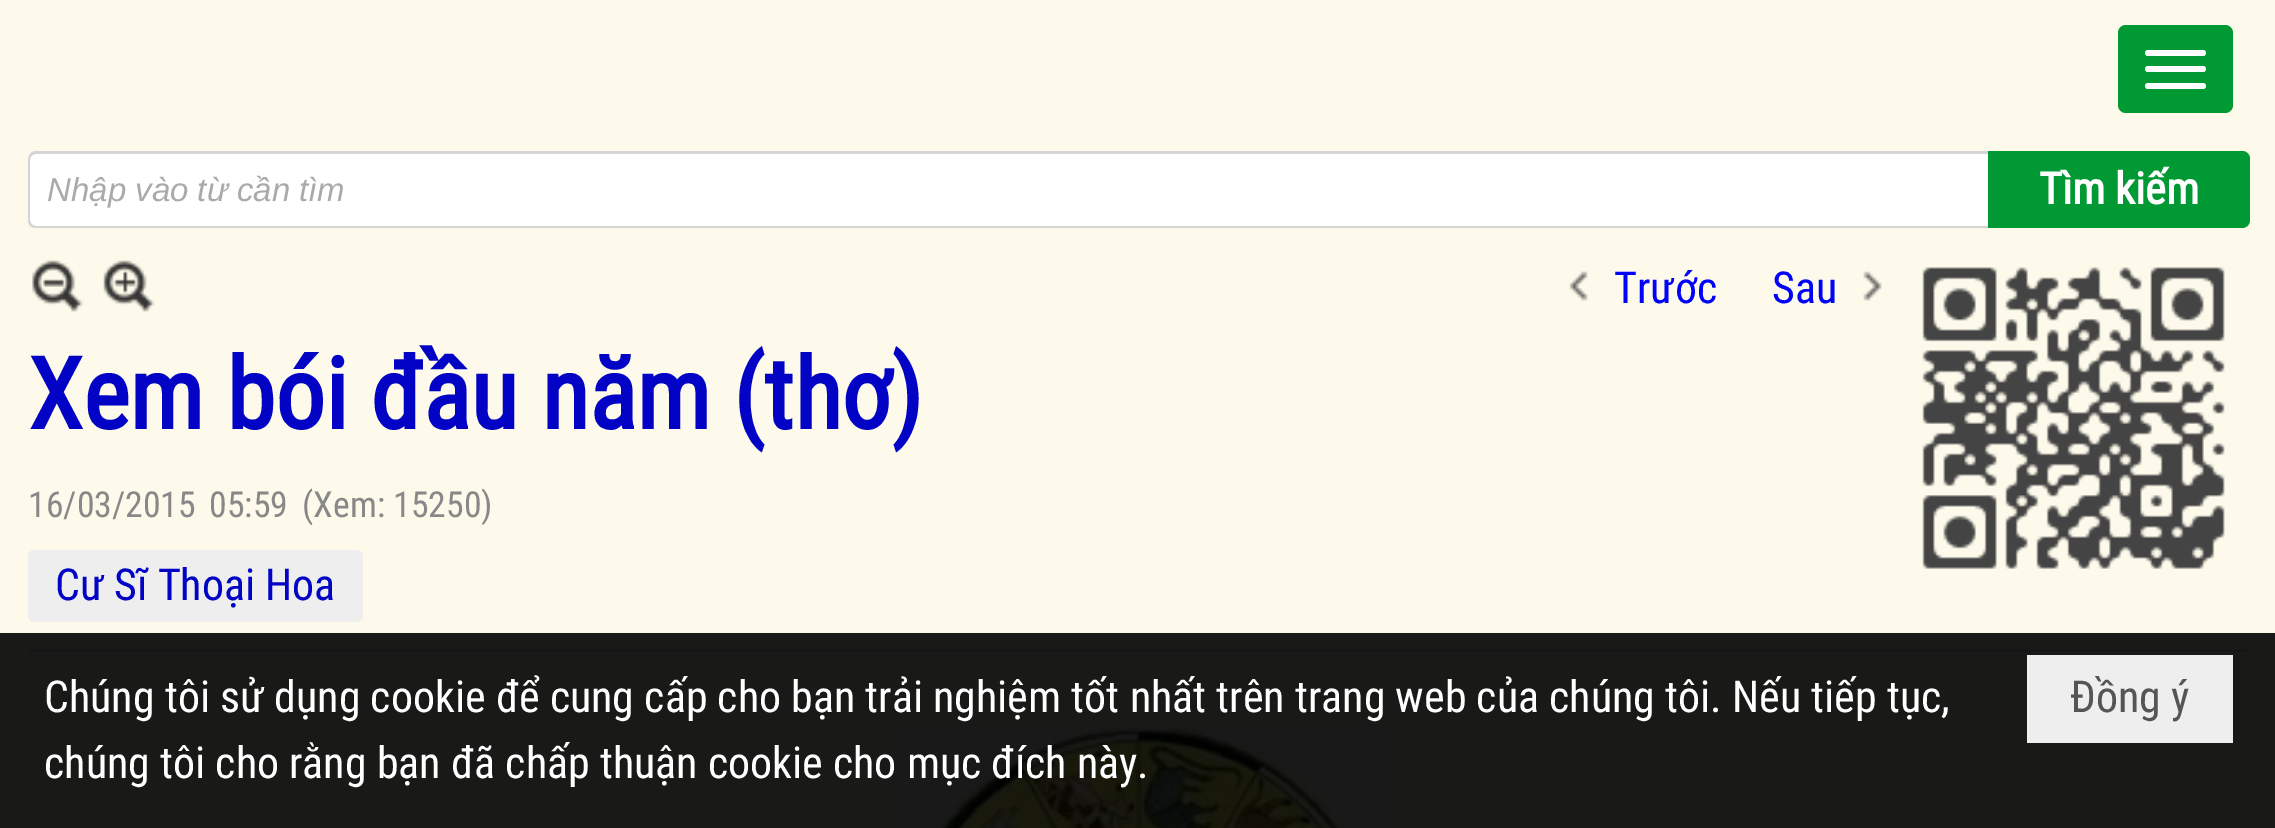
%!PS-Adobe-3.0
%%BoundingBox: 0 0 2275 828
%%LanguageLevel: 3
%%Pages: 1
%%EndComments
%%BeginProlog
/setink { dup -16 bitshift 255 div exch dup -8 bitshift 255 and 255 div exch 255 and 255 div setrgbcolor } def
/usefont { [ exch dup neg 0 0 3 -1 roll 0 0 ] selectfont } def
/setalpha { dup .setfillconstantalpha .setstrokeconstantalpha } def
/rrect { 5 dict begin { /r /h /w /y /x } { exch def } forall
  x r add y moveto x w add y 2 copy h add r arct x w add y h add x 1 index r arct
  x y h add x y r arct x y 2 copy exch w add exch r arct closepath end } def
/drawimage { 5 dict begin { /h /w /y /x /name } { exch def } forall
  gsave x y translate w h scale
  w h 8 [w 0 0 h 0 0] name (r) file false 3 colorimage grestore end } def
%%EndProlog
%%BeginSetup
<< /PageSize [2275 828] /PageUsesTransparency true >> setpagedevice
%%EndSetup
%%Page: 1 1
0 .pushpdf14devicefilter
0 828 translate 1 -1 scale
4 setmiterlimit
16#FDFAEB setink
0 0 2275 828 rectfill
16#009933 setink
2118 25 115 88 8 rrect fill
16#FFFFFF setink
2145 50 61 6 3 rrect fill
2145 66 61 6 3 rrect fill
2145 83 61 6 3 rrect fill
36 154 moveto 1988 154 lineto 1988 226 lineto 36 226 lineto 32.5 226 30 223.5 30 220 curveto 30 160 lineto 30 156.5 32.5 154 36 154 curveto closepath fill
16#D5D5D5 setink
36 151 moveto 1988 151 lineto 1988 228 lineto 36 228 lineto 31 228 28 225 28 220 curveto 28 160 lineto 28 155 31 151 36 151 curveto closepath 36 154 moveto 1988 154 lineto 1988 226 lineto 36 226 lineto 33 226 30 223 30 220 curveto 30 160 lineto 30 156 33 154 36 154 curveto closepath eofill
/LiberationSans-Italic 33 usefont
16#AAAAAA setink
47 201 moveto (Nhập vào từ cần tìm) show
16#009933 setink
1988 151 moveto 2242 151 lineto 2246.5 151 2250 154.5 2250 159 curveto 2250 220 lineto 2250 224.5 2246.5 228 2242 228 curveto 1988 228 lineto closepath fill
/RobotoCondensed-Bold 44 usefont
16#FFFFFF setink
2039 204 moveto (Tìm kiếm) show
16#E1E1E1 setink
28 649 2222 3 rectfill
(img1.raw) 32 260 52 52 drawimage
(img2.raw) 103 260 52 52 drawimage
(img3.raw) 1569 271 19 30 drawimage
/RobotoCondensed-Regular 44 usefont
16#0102FA setink
1614 303 moveto (Trước) show
(img4.raw) 1863 271 19 30 drawimage
1772 303 moveto (Sau) show
(img5.raw) 1922 267 303 302 drawimage
/RobotoCondensed-Bold 99 usefont
16#0203C4 setink
28 429 moveto (Xem bói đầu năm \(thơ\)) show
/RobotoCondensed-Regular 35.75 usefont
16#888888 setink
[
    [(16/03/2015) 28 517]
    [(05:59) 209 517]
    [(\(Xem: 15250\)) 302 517]
] { aload pop moveto show } forall
16#EEEEEE setink
28 550 335 72 6 rrect fill
/RobotoCondensed-Regular 44 usefont
16#0203C4 setink
55 600 moveto (Cư Sĩ Thoại Hoa) show
(img6.raw) 891 726 495 102 drawimage
0.9 setalpha
16#000000 setink
0 633 2275 195 rectfill
1 setalpha
16#FFFFFF setink
44 712 moveto (Chúng tôi sử dụng cookie để cung cấp cho bạn trải nghiệm tốt nhất trên trang web của chúng tôi. Nếu tiếp tục,) show
44 778 moveto (chúng tôi cho rằng bạn đã chấp thuận cookie cho mục đích này.) show
16#EEEEEE setink
2027 655 206 88 rectfill
16#555555 setink
2070 712 moveto (Đồng ý) show
.poppdf14devicefilter showpage
%%EOF
